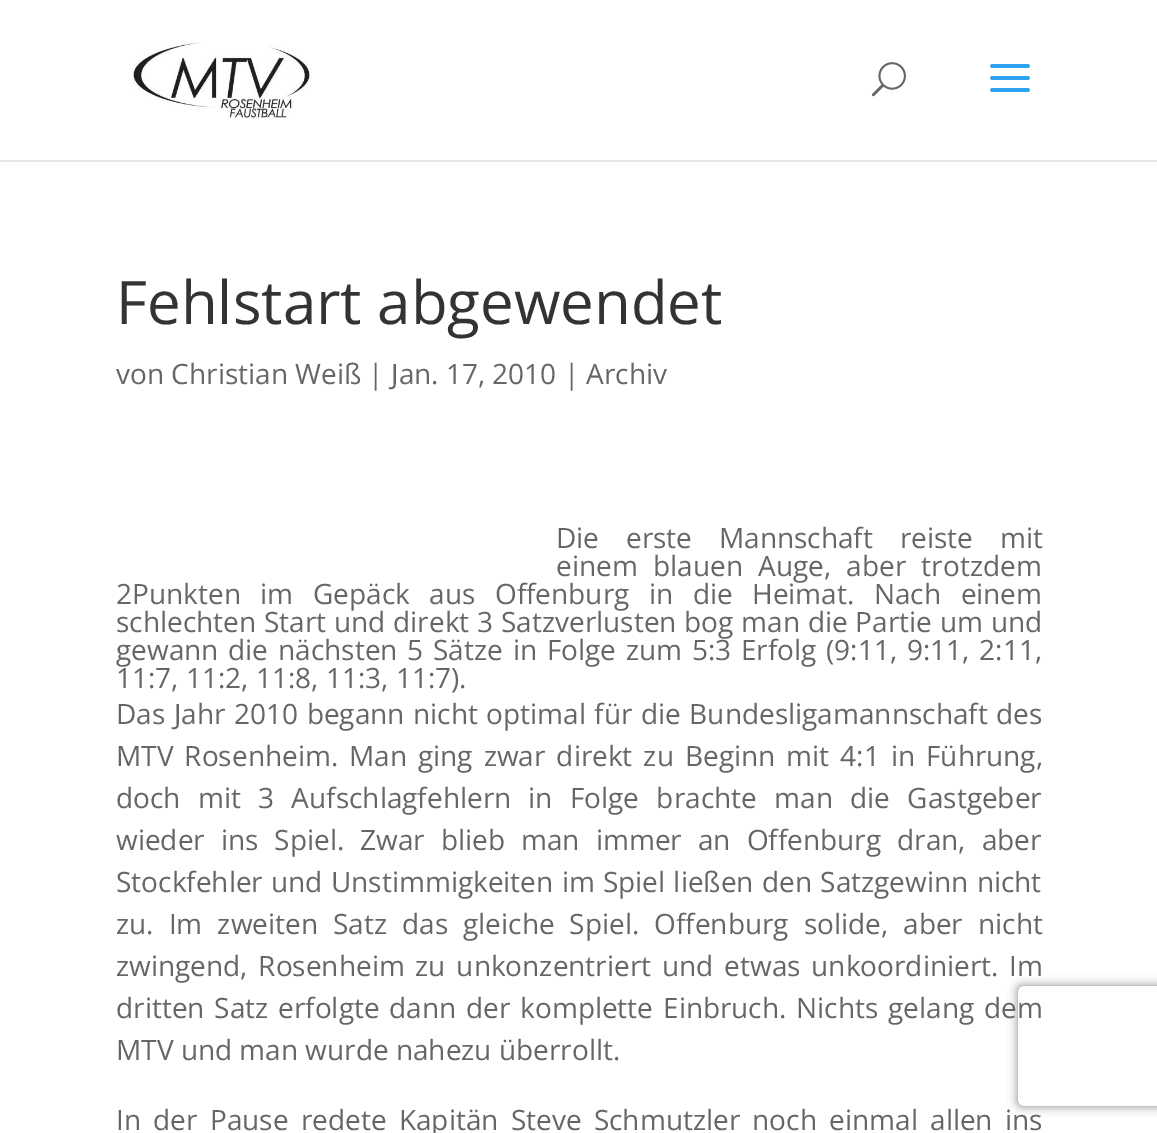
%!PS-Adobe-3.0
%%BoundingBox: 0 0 1157 1133
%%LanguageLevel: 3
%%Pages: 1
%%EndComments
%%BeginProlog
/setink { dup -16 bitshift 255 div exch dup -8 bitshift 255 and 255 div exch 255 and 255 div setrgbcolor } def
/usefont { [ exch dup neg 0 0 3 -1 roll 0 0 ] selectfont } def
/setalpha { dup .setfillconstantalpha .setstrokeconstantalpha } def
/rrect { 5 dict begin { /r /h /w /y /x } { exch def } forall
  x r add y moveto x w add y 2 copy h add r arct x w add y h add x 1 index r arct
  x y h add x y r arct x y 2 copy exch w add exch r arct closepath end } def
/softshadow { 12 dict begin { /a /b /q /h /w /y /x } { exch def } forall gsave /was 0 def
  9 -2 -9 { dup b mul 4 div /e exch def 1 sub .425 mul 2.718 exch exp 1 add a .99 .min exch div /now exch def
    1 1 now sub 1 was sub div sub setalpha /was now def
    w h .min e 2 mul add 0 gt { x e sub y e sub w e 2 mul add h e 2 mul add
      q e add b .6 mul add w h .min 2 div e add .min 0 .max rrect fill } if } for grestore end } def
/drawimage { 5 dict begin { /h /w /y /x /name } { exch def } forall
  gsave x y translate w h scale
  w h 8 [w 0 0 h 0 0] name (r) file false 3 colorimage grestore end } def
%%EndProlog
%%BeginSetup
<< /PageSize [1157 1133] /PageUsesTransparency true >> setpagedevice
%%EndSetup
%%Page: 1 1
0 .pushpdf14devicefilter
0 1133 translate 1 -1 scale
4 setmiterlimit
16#FFFFFF setink
0 0 1157 1133 rectfill
16#E6E6E6 setink
0 160 1157 2 rectfill
(img1.raw) 133 41 179 78 drawimage
(img2.raw) 871 62 35 35 drawimage
(img3.raw) 990 64 40 28 drawimage
/OpenSans-Regular 60 usefont
16#333333 setink
116 324 moveto (Fehlstart abgewendet) show
/OpenSans-Regular 28 usefont
16#666666 setink
116 384 moveto (von Christian Weiß | Jan. 17, 2010 | Archiv) show
556 548 moveto 19.5 0 32 (Die erste Mannschaft reiste mit) widthshow
556 576 moveto 8 0 32 (einem blauen Auge, aber trotzdem) widthshow
116 604 moveto 12.25 0 32 (2Punkten im Gepäck aus Offenburg in die Heimat. Nach einem) widthshow
116 632 moveto 0.5 0 32 (schlechten Start und direkt 3 Satzverlusten bog man die Partie um und) widthshow
116 660 moveto 2.5 0 32 (gewann die nächsten 5 Sätze in Folge zum 5:3 Erfolg \(9:11, 9:11, 2:11,) widthshow
116 688 moveto (11:7, 11:2, 11:8, 11:3, 11:7\).) show
116 724 moveto 1.25 0 32 (Das Jahr 2010 begann nicht optimal für die Bundesligamannschaft des) widthshow
116 766 moveto 3.75 0 32 (MTV Rosenheim. Man ging zwar direkt zu Beginn mit 4:1 in Führung,) widthshow
116 808 moveto 10 0 32 (doch mit 3 Aufschlagfehlern in Folge brachte man die Gastgeber) widthshow
116 850 moveto 8.75 0 32 (wieder ins Spiel. Zwar blieb man immer an Offenburg dran, aber) widthshow
116 892 moveto 1 0 32 (Stockfehler und Unstimmigkeiten im Spiel ließen den Satzgewinn nicht) widthshow
116 934 moveto 7.75 0 32 (zu. Im zweiten Satz das gleiche Spiel. Offenburg solide, aber nicht) widthshow
116 976 moveto 3.5 0 32 (zwingend, Rosenheim zu unkonzentriert und etwas unkoordiniert. Im) widthshow
116 1018 moveto 2.5 0 32 (dritten Satz erfolgte dann der komplette Einbruch. Nichts gelang dem) widthshow
116 1060 moveto (MTV und man wurde nahezu überrollt.) show
116 1130 moveto 5 0 32 (In der Pause redete Kapitän Steve Schmutzler noch einmal allen ins) widthshow
gsave
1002 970 moveto 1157 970 lineto 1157 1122 lineto 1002 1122 lineto closepath 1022 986 moveto 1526 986 lineto 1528 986 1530 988 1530 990 curveto 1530 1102 lineto 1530 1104 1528 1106 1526 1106 curveto 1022 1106 lineto 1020 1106 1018 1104 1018 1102 curveto 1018 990 lineto 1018 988 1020 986 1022 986 curveto closepath eoclip newpath
16#808080 setink
1018 986 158 120 4 5 1 softshadow
grestore
.poppdf14devicefilter showpage
%%EOF
